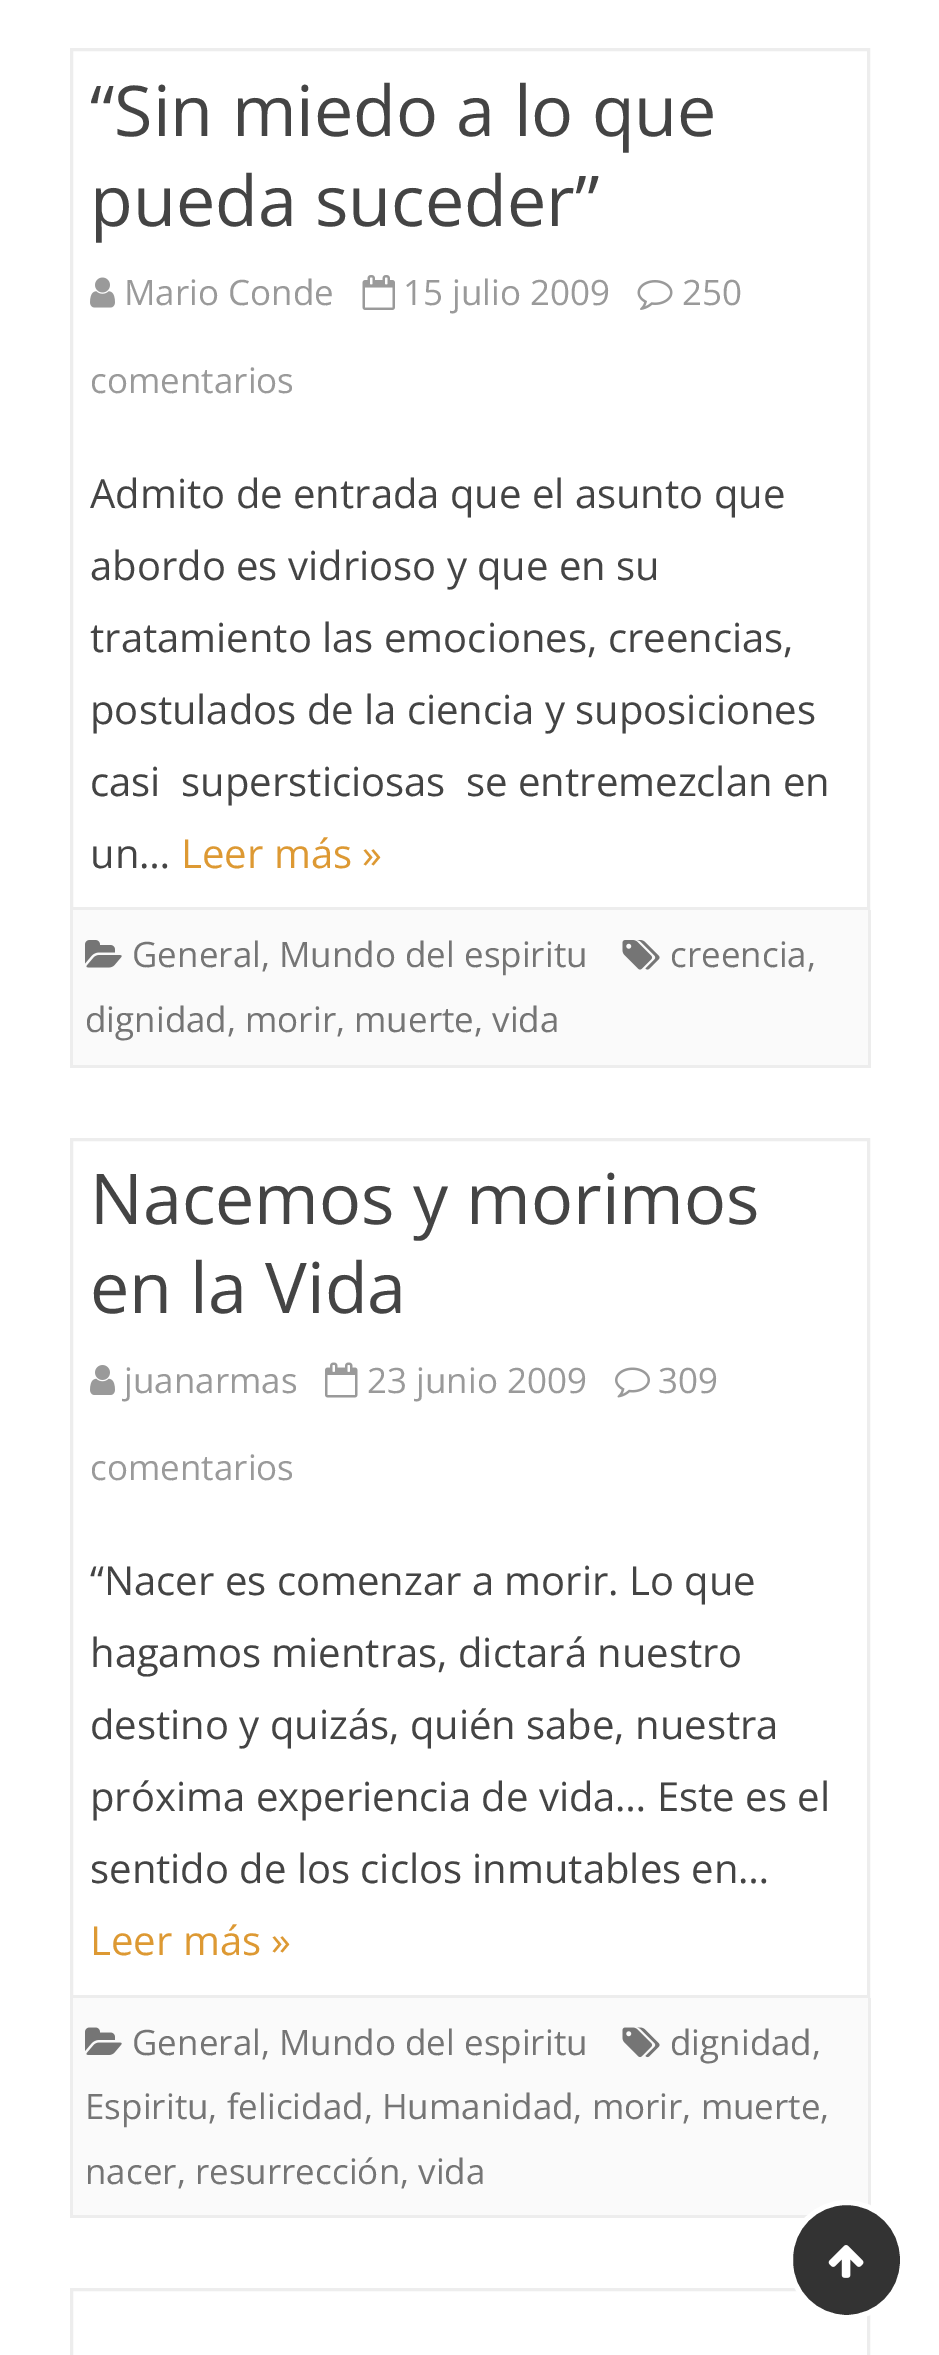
%!PS-Adobe-3.0
%%BoundingBox: 0 0 939 2355
%%LanguageLevel: 3
%%Pages: 1
%%EndComments
%%BeginProlog
/setink { dup -16 bitshift 255 div exch dup -8 bitshift 255 and 255 div exch 255 and 255 div setrgbcolor } def
/usefont { [ exch dup neg 0 0 3 -1 roll 0 0 ] selectfont } def
/rrect { 5 dict begin { /r /h /w /y /x } { exch def } forall
  x r add y moveto x w add y 2 copy h add r arct x w add y h add x 1 index r arct
  x y h add x y r arct x y 2 copy exch w add exch r arct closepath end } def
/drawimage { 5 dict begin { /h /w /y /x /name } { exch def } forall
  gsave x y translate w h scale
  w h 8 [w 0 0 h 0 0] name (r) file false 3 colorimage grestore end } def
%%EndProlog
%%BeginSetup
<< /PageSize [939 2355] >> setpagedevice
%%EndSetup
%%Page: 1 1
0 2355 translate 1 -1 scale
4 setmiterlimit
16#FFFFFF setink
0 0 939 2355 rectfill
16#EDEDED setink
3 setlinewidth
71.5 49.5 797 859 rectstroke
/OpenSans-Regular 70 usefont
16#444444 setink
90 136 moveto (“Sin miedo a lo que) show
90 226 moveto (pueda suceder”) show
(img1.raw) 90 277 25 31 drawimage
/OpenSans-Regular 35 usefont
16#9A9A9A setink
124 305 moveto (Mario Conde) show
(img2.raw) 362 275 33 35 drawimage
403 305 moveto (15 julio 2009) show
(img3.raw) 637 280 36 30 drawimage
682 305 moveto (250) show
90 393 moveto (comentarios) show
/OpenSans-Regular 40 usefont
16#444444 setink
[
    [(Admito de entrada que el asunto que) 90 508]
    [(abordo es vidrioso y que en su) 90 580]
    [(tratamiento las emociones, creencias,) 90 652]
    [(postulados de la ciencia y suposiciones) 90 724]
    [(casi  supersticiosas  se entremezclan en) 90 796]
    [(un…) 90 868]
] { aload pop moveto show } forall
16#DD9933 setink
181 868 moveto (Leer más ») show
[
    [73 910 795 155 16#FAFAFA]
    [868 910 3 158 16#EDEDED]
    [70 1065 800 3 16#EDEDED]
    [70 910 3 158 16#EDEDED]
] { aload pop setink rectfill } forall
(img4.raw) 85 940 37 28 drawimage
/OpenSans-Regular 35 usefont
16#757575 setink
132 967 moveto (General, Mundo del espiritu) show
(img5.raw) 622 940 38 30 drawimage
670 967 moveto (creencia,) show
85 1032 moveto (dignidad, morir, muerte, vida) show
16#EDEDED setink
71.5 1139.5 797 857 rectstroke
/OpenSans-Regular 70 usefont
16#444444 setink
90 1224 moveto (Nacemos y morimos) show
90 1313 moveto (en la Vida) show
(img6.raw) 615 1367 35 31 drawimage
/OpenSans-Regular 35 usefont
16#9A9A9A setink
658 1393 moveto (309) show
90 1480 moveto (comentarios) show
(img7.raw) 90 1365 25 30 drawimage
124 1393 moveto (juanarmas) show
(img8.raw) 325 1362 33 36 drawimage
367 1393 moveto (23 junio 2009) show
/OpenSans-Regular 40 usefont
16#444444 setink
[
    [(“Nacer es comenzar a morir. Lo que) 90 1595]
    [(hagamos mientras, dictará nuestro) 90 1667]
    [(destino y quizás, quién sabe, nuestra) 90 1739]
    [(próxima experiencia de vida… Este es el) 90 1811]
    [(sentido de los ciclos inmutables en…) 90 1883]
] { aload pop moveto show } forall
16#DD9933 setink
90 1955 moveto (Leer más ») show
[
    [73 1998 795 217 16#FAFAFA]
    [868 1998 3 208 16#EDEDED]
    [70 2215 738 3 16#EDEDED]
    [70 1998 3 220 16#EDEDED]
] { aload pop setink rectfill } forall
(img9.raw) 622 2027 38 31 drawimage
/OpenSans-Regular 35 usefont
16#757575 setink
[
    [(dignidad,) 670 2055]
    [(Espiritu, felicidad, Humanidad, morir, muerte,) 85 2119]
    [(nacer, resurrección, vida) 85 2184]
] { aload pop moveto show } forall
(img10.raw) 85 2027 37 28 drawimage
132 2055 moveto (General, Mundo del espiritu) show
16#EDEDED setink
71.5 2289.5 797 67 rectstroke
16#333333 setink
790.5 2202.5 112 115 56 rrect gsave fill grestore
16#FFFFFF setink
5 setlinewidth
stroke
(img11.raw) 828 2245 36 33 drawimage
showpage
%%EOF
